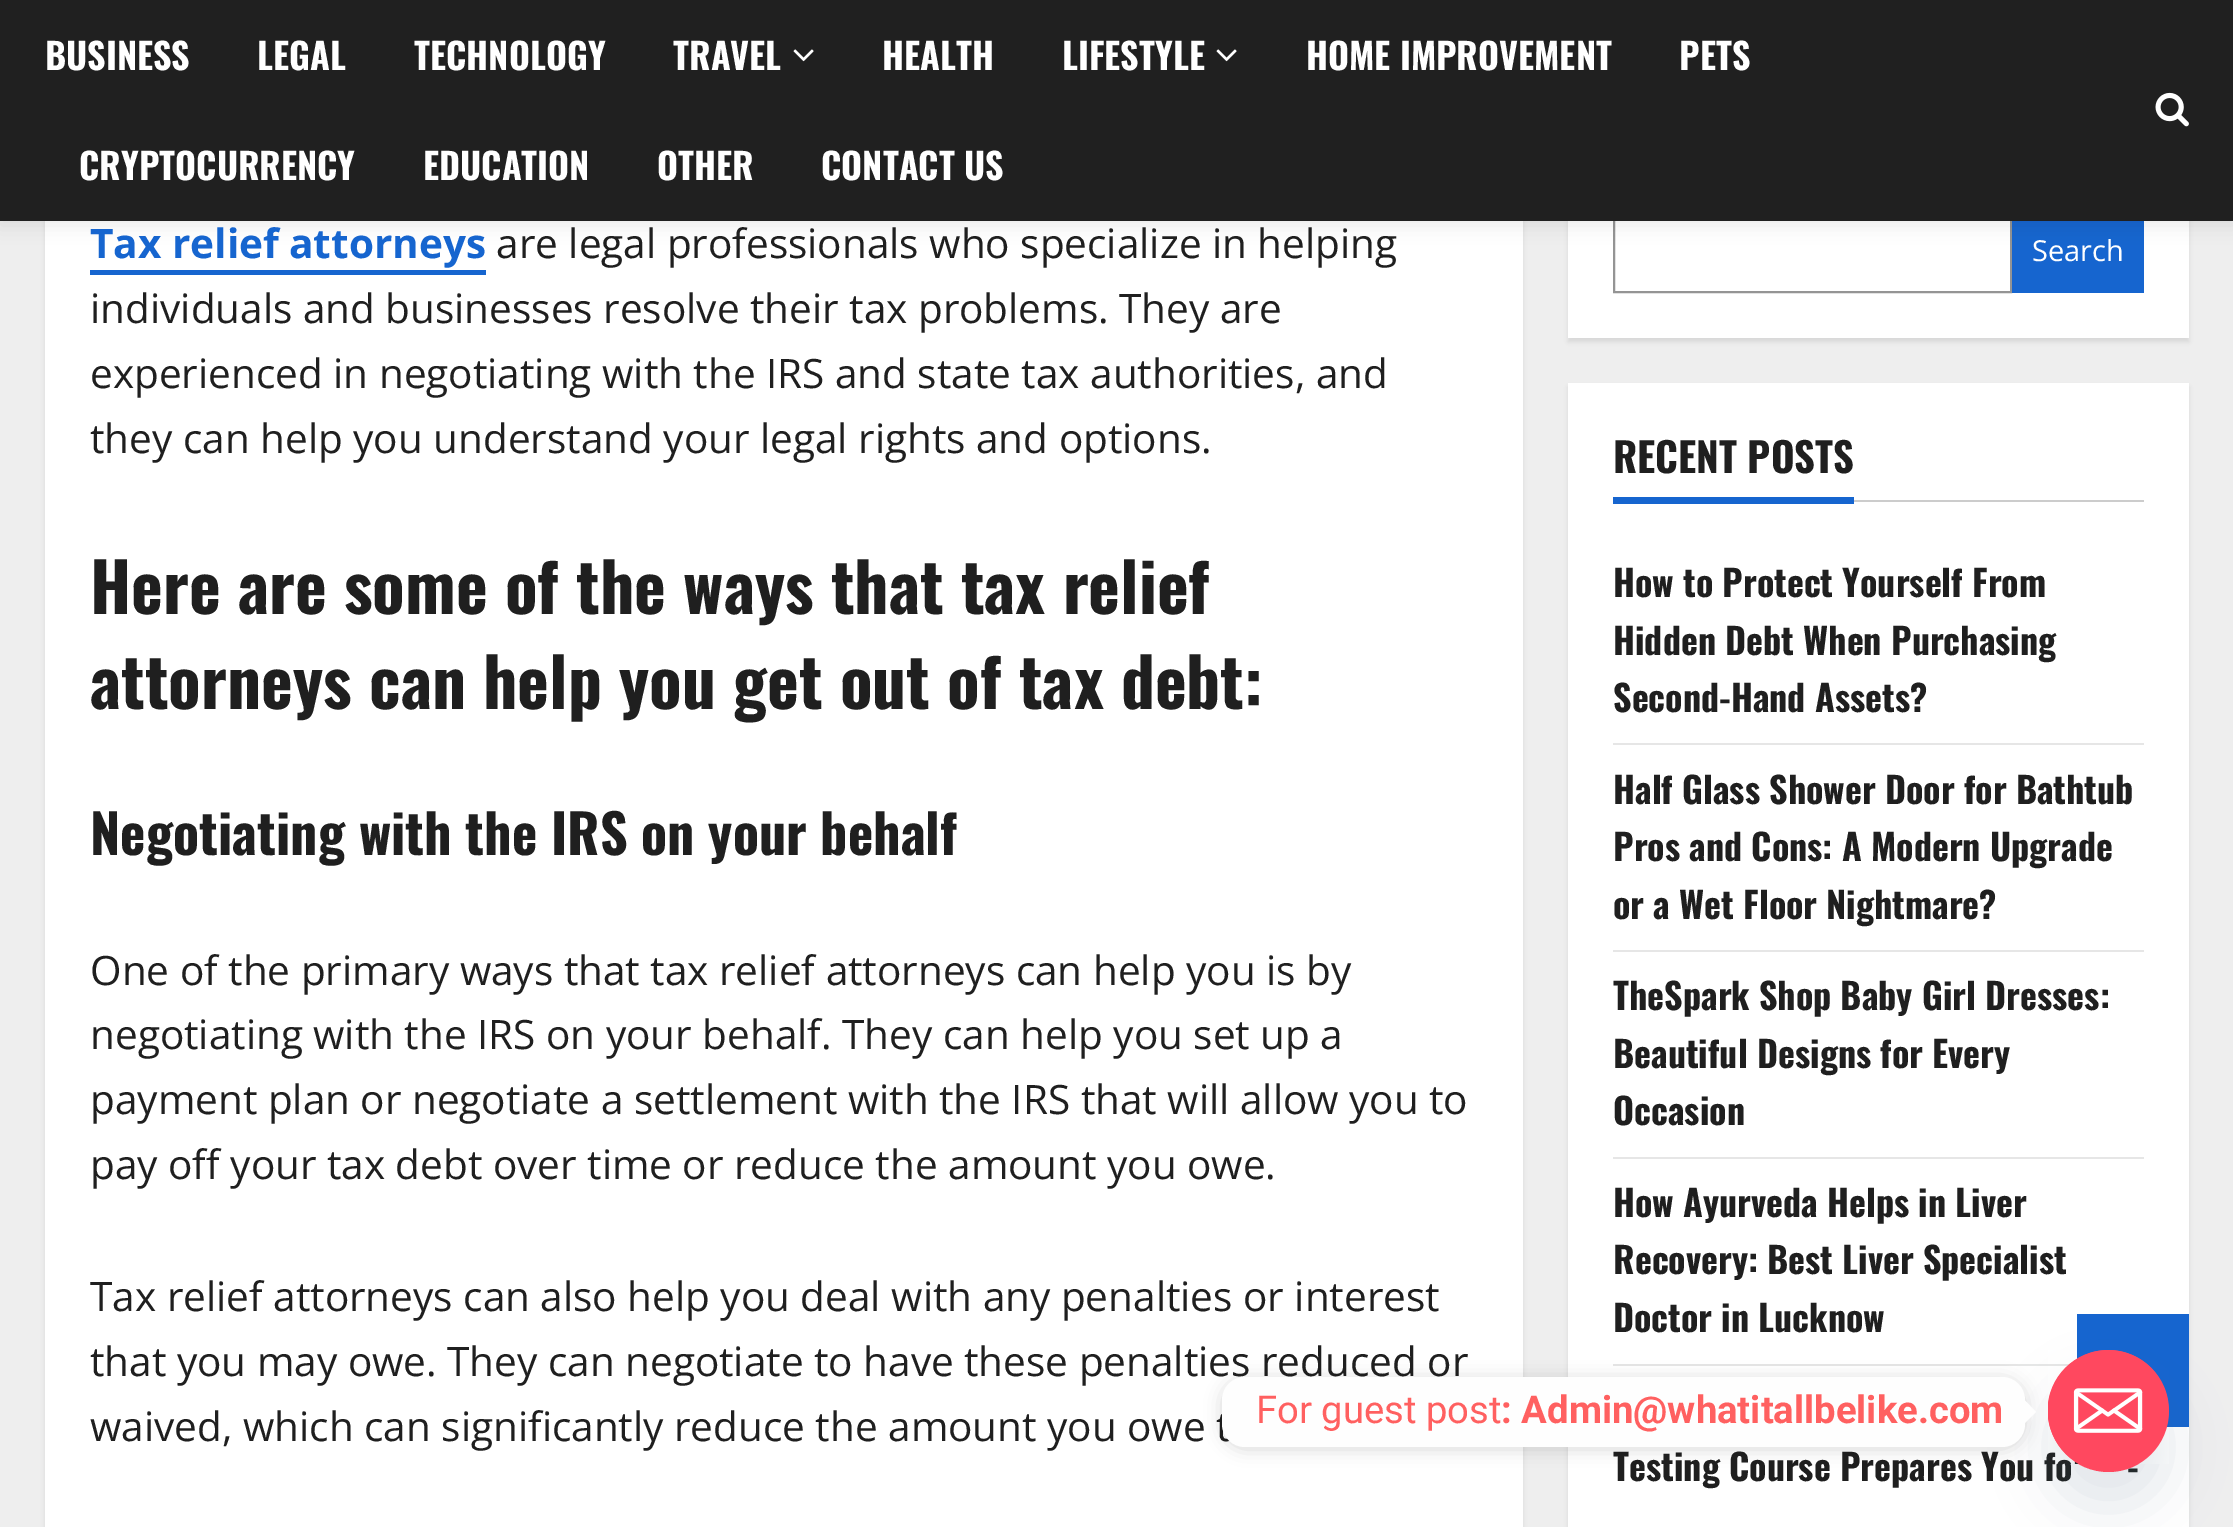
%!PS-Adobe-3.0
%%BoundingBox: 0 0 2233 1527
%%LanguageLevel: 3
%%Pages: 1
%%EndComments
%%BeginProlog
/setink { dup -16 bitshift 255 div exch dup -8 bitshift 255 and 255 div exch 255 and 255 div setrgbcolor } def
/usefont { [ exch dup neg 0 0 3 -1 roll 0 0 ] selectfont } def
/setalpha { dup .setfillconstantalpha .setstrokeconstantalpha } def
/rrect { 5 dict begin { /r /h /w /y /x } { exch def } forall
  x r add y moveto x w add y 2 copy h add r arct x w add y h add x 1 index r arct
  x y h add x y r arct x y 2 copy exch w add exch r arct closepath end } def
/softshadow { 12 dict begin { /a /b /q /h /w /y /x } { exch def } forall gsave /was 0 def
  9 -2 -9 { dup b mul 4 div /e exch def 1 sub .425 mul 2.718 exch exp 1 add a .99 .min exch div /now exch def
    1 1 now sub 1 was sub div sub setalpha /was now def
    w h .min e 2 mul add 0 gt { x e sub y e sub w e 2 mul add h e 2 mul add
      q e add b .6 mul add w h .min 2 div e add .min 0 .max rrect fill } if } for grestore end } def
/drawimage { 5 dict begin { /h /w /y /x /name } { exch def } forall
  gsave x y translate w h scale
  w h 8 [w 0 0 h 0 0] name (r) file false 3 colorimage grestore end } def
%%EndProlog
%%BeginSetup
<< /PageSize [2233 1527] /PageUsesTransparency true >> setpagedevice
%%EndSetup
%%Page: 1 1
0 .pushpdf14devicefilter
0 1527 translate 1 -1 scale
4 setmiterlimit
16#EEEEEE setink
0 0 2233 1527 rectfill
16#000000 setink
45 -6 1478 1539 0 2 0.08 softshadow
16#FFFFFF setink
45 221 1478 1306 rectfill
16#000000 setink
1568 50 621 292 0 2 0.08 softshadow
16#FFFFFF setink
1568 221 621 117 rectfill
16#949494 setink
2 setlinewidth
1614 208 397 84 rectstroke
16#1665CF setink
2012 221 132 72 rectfill
16#000000 setink
0 5 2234 220 0 9 0.08 softshadow
16#202020 setink
0 0 2233 221 rectfill
/Oswald-Bold 36 usefont
16#FFFFFF setink
[
    [(BUSINESS) 45 70]
    [(LEGAL) 257 70]
    [(TECHNOLOGY) 414 70]
    [(TRAVEL) 673 70]
] { aload pop moveto show } forall
(img1.raw) 793 49 21 13 drawimage
882 70 moveto (HEALTH) show
1062 70 moveto (LIFESTYLE) show
(img1.raw) 1216 49 21 13 drawimage
[
    [(HOME IMPROVEMENT) 1306 70]
    [(PETS) 1679 70]
    [(CRYPTOCURRENCY) 79 180]
    [(EDUCATION) 423 180]
    [(OTHER) 657 180]
    [(CONTACT US) 821 180]
] { aload pop moveto show } forall
(img2.raw) 2155 92 34 35 drawimage
/OpenSans-Bold 40.5 usefont
16#1665CF setink
90 258 moveto (Tax relief attorneys) show
90 270 396 5 rectfill
/OpenSans-Regular 40.5 usefont
16#1F1F1F setink
[
    [(are legal professionals who specialize in helping) 496 258]
    [(individuals and businesses resolve their tax problems. They are) 90 323]
    [(experienced in negotiating with the IRS and state tax authorities, and) 90 388]
    [(they can help you understand your legal rights and options.) 90 453]
] { aload pop moveto show } forall
/Oswald-Bold 67.5 usefont
90 614 moveto (Here are some of the ways that tax relief) show
90 709 moveto (attorneys can help you get out of tax debt:) show
/Oswald-Bold 54 usefont
90 855 moveto (Negotiating with the IRS on your behalf) show
/OpenSans-Regular 40.5 usefont
[
    [(One of the primary ways that tax relief attorneys can help you is by) 90 985]
    [(negotiating with the IRS on your behalf. They can help you set up a) 90 1049]
    [(payment plan or negotiate a settlement with the IRS that will allow you to) 90 1114]
    [(pay off your tax debt over time or reduce the amount you owe.) 90 1179]
    [(Tax relief attorneys can also help you deal with any penalties or interest) 90 1311]
    [(that you may owe. They can negotiate to have these penalties reduced or) 90 1376]
    [(waived, which can significantly reduce the amount you owe t) 90 1441]
] { aload pop moveto show } forall
/OpenSans-Regular 29 usefont
16#FFFFFF setink
2032 261 moveto (Search) show
16#000000 setink
1568 387 621 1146 0 2 0.08 softshadow
16#FFFFFF setink
1568 383 621 1144 rectfill
/Oswald-Bold 40.5 usefont
16#1F1F1F setink
1613 473 moveto (RECENT POSTS) show
[
    [1613 497 241 7 16#1665CF]
    [1854 500 290 2 16#CCCCCC]
    [1613 743 531 2 16#E6E6E6]
] { aload pop setink rectfill } forall
/Oswald-Bold 36 usefont
16#1F1F1F setink
[
    [(How to Protect Yourself From) 1613 597]
    [(Hidden Debt When Purchasing) 1613 655]
    [(Second-Hand Assets?) 1613 712]
] { aload pop moveto show } forall
16#E6E6E6 setink
1613 950 531 2 rectfill
16#1F1F1F setink
[
    [(Half Glass Shower Door for Bathtub) 1613 804]
    [(Pros and Cons: A Modern Upgrade) 1613 861]
    [(or a Wet Floor Nightmare?) 1613 919]
] { aload pop moveto show } forall
16#E6E6E6 setink
1613 1157 531 2 rectfill
16#1F1F1F setink
[
    [(TheSpark Shop Baby Girl Dresses:) 1613 1010]
    [(Beautiful Designs for Every) 1613 1068]
    [(Occasion) 1613 1125]
] { aload pop moveto show } forall
16#E6E6E6 setink
1613 1364 457 2 rectfill
16#1F1F1F setink
[
    [(How Ayurveda Helps in Liver) 1613 1217]
    [(Recovery: Best Liver Specialist) 1613 1274]
    [(Doctor in Lucknow) 1613 1332]
    [(Testing Course Prepares You fo) 1613 1481]
    [(-) 2127 1481]
] { aload pop moveto show } forall
16#1665CF setink
2077 1314 112 113 rectfill
16#49687E setink
2048 1386 121 122 60.5 27 0.16 softshadow
16#FF485F setink
2048 1350 121 122 60.5 rrect fill
(img3.raw) 2048 1350 121 114 drawimage
16#000000 setink
1222 1379 803 70 23 8.5 0.15 softshadow
16#FEFEFE setink
1222 1377 803 70 23 rrect fill
/Roboto-Regular 38.25 usefont
16#FF6060 setink
1256 1423 moveto (For guest post) show
/Roboto-Bold 38.25 usefont
1501 1423 moveto (: Admin@whatitallbelike.com) show
16#FEFEFE setink
2025 1423 moveto 2025 1400.5 lineto 2036 1412 lineto closepath fill
.poppdf14devicefilter showpage
%%EOF
